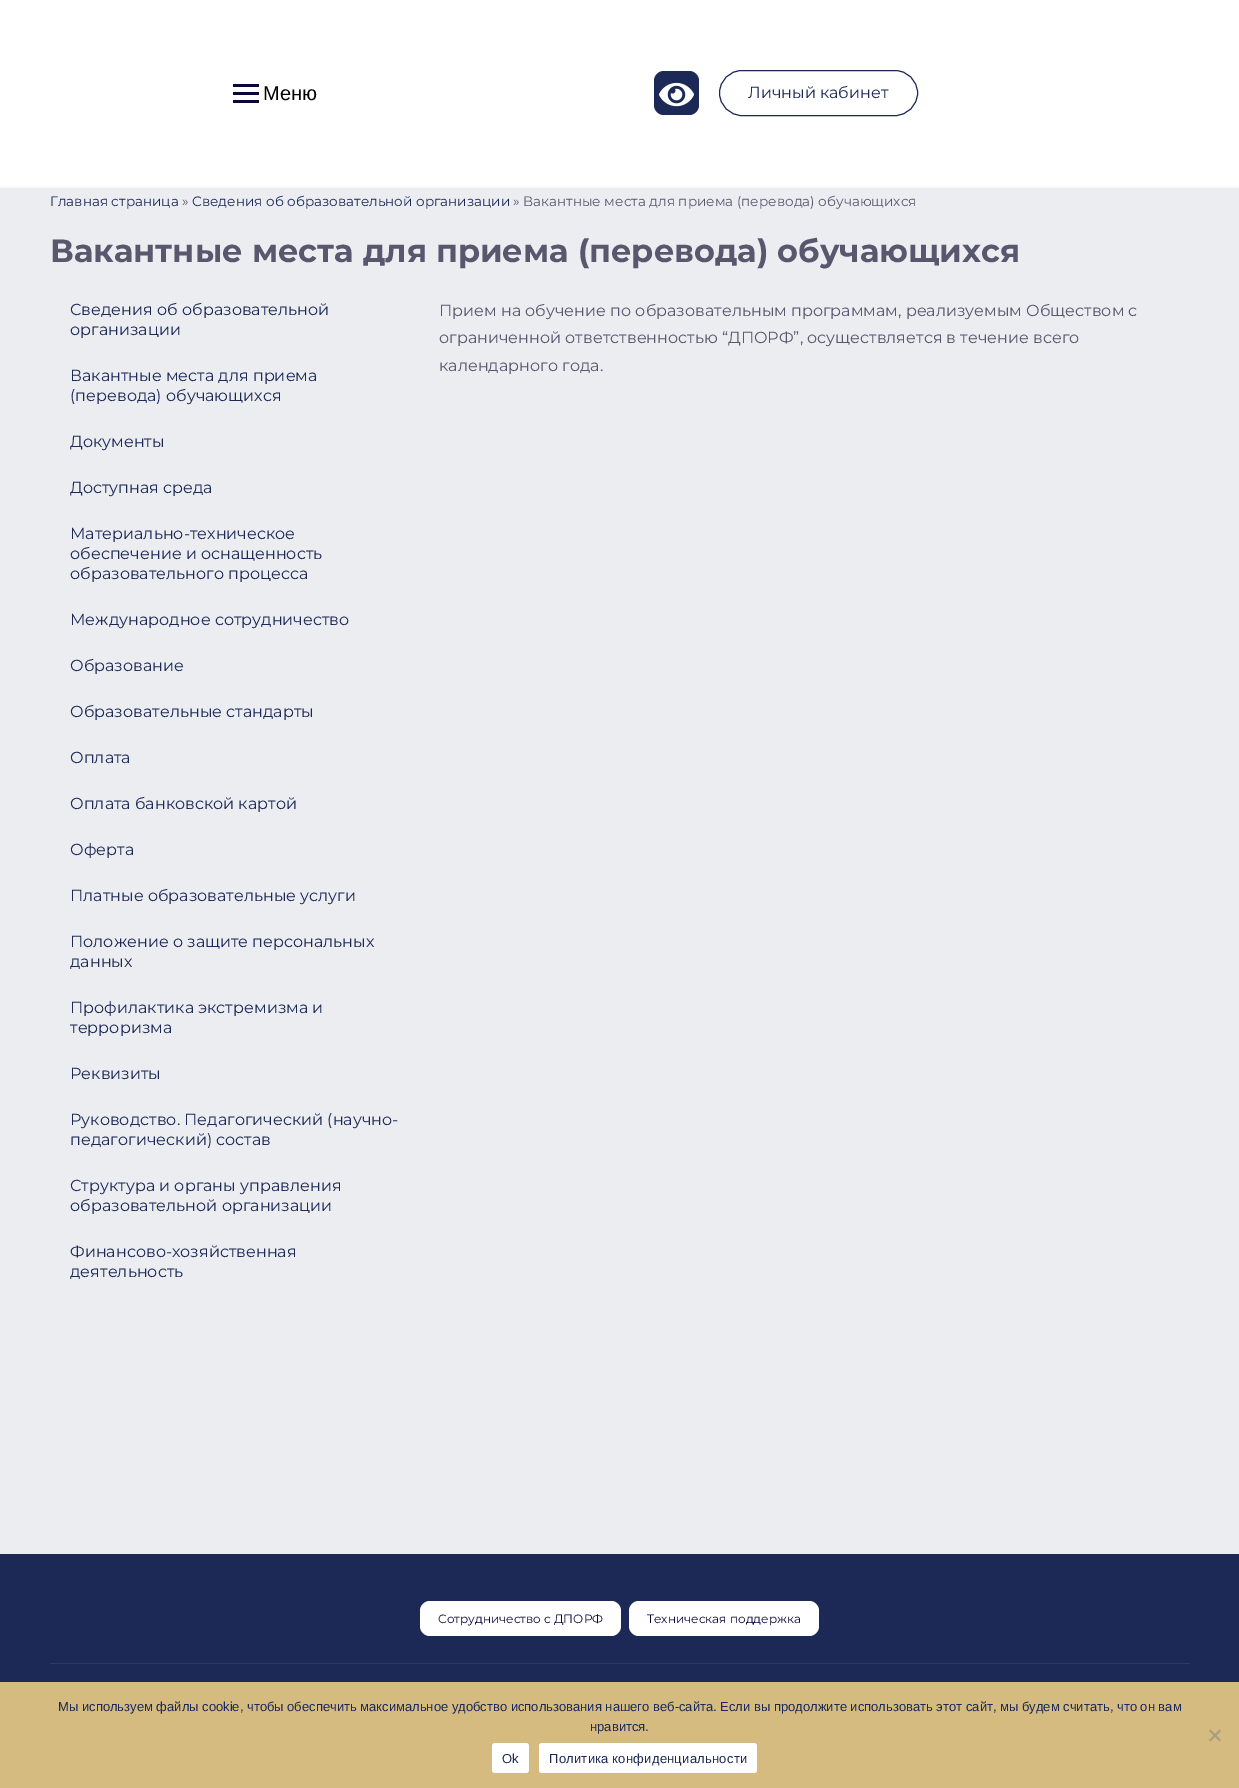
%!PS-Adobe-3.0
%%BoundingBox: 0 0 1239 1788
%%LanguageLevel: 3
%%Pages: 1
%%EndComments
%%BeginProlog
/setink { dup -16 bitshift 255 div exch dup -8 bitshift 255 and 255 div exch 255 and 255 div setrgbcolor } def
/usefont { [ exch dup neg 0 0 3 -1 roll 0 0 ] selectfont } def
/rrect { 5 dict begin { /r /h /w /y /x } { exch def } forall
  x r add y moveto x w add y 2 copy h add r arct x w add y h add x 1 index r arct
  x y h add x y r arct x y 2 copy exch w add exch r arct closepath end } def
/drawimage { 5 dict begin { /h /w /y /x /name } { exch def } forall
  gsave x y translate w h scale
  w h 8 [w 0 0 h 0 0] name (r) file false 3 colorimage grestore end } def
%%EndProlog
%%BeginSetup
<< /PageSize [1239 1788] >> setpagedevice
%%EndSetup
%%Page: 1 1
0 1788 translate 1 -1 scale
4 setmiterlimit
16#ECEDF1 setink
0 0 1239 1788 rectfill
[
    [0 0 1239 186 16#FFFFFF]
    [0 186 1239 2 16#F8F8F8]
    [233 92 26 3 16#0A083B]
    [233 84 26 3 16#0A083B]
    [233 100 26 3 16#0A083B]
] { aload pop setink rectfill } forall
/LiberationSans-Regular 20 usefont
16#000000 setink
263 100 moveto (Меню) show
16#1C2956 setink
654 71 45 44 10 rrect fill
(img1.raw) 659 82 35 25 drawimage
719.5 70.5 198 45 22.5 rrect stroke
/Montserrat-Regular 16 usefont
748 98 moveto (Личный кабинет) show
/Montserrat-Regular 13.6 usefont
50 206 moveto (Главная страница) show
16#57586E setink
182 206 moveto (») show
16#1C2956 setink
192 206 moveto (Сведения об образовательной организации) show
16#57586E setink
513 206 moveto (» Вакантные места для приема \(перевода\) обучающихся) show
/Montserrat-Bold 32 usefont
50 262 moveto (Вакантные места для приема \(перевода\) обучающихся) show
/Montserrat-Regular 16 usefont
16#1C2956 setink
[
    [(Сведения об образовательной) 70 315]
    [(организации) 70 335]
    [(Вакантные места для приема) 70 381]
    [(\(перевода\) обучающихся) 70 401]
    [(Документы) 70 447]
    [(Доступная среда) 70 493]
    [(Материально-техническое) 70 539]
    [(обеспечение и оснащенность) 70 559]
    [(образовательного процесса) 70 579]
    [(Международное сотрудничество) 70 625]
    [(Образование) 70 671]
    [(Образовательные стандарты) 70 717]
    [(Оплата) 70 763]
    [(Оплата банковской картой) 70 809]
    [(Оферта) 70 855]
    [(Платные образовательные услуги) 70 901]
    [(Положение о защите персональных) 70 947]
    [(данных) 70 967]
    [(Профилактика экстремизма и) 70 1013]
    [(терроризма) 70 1033]
    [(Реквизиты) 70 1079]
    [(Руководство. Педагогический \(научно-) 70 1125]
    [(педагогический\) состав) 70 1145]
    [(Структура и органы управления) 70 1191]
    [(образовательной организации) 70 1211]
    [(Финансово-хозяйственная) 70 1257]
    [(деятельность) 70 1277]
] { aload pop moveto show } forall
16#57586E setink
[
    [(Прием на обучение по образовательным программам, реализуемым Обществом с) 439 316]
    [(ограниченной ответственностью “ДПОРФ”, осуществляется в течение всего) 439 343]
    [(календарного года.) 439 371]
] { aload pop moveto show } forall
16#1C2956 setink
0 1554 1239 128 rectfill
16#2E3A64 setink
50 1663 1140 1 rectfill
16#FFFFFF setink
420 1601 201 35 10 rrect fill
/Montserrat-Regular 12 usefont
16#0A083B setink
438 1623 moveto (Сотрудничество с ДПОРФ) show
16#FFFFFF setink
629 1601 190 35 10 rrect fill
16#0A083B setink
647 1623 moveto (Техническая поддержка) show
16#D5BB7F setink
0 1682 1239 106 rectfill
/LiberationSans-Regular 13 usefont
16#1C2956 setink
58 1711 moveto (Мы используем файлы cookie, чтобы обеспечить максимальное удобство использования нашего веб-сайта. Если вы продолжите использовать этот сайт, мы будем считать, что он вам) show
590 1731 moveto (нравится.) show
16#AB9E80 setink
1219.5 1729.5 moveto 1221 1731 lineto 1210.5 1741.5 lineto 1209 1740 lineto closepath fill
1209 1731 moveto 1210.5 1729.5 lineto 1221 1740 lineto 1219.5 1741.5 lineto closepath fill
16#FFFFFF setink
492 1743 37 30 3 rrect fill
16#1C2956 setink
502 1763 moveto 0.25 0 (Ok) ashow
16#FFFFFF setink
539 1743 218 30 3 rrect fill
16#1C2956 setink
549 1763 moveto 0.25 0 (Политика конфиденциальности) ashow
showpage
%%EOF
